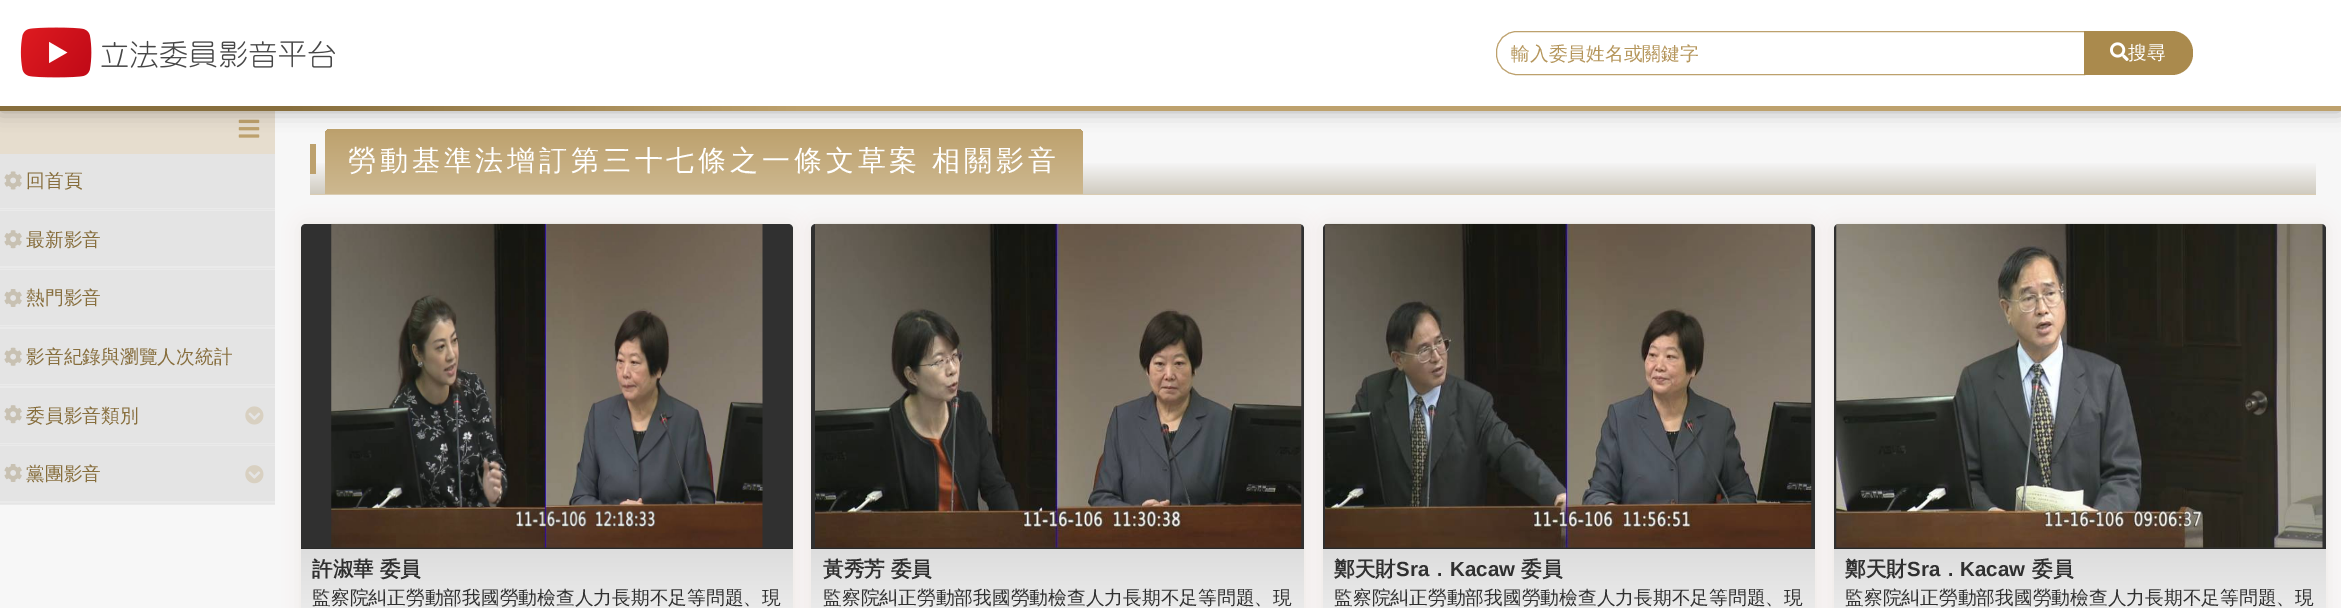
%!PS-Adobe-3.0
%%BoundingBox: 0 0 2341 608
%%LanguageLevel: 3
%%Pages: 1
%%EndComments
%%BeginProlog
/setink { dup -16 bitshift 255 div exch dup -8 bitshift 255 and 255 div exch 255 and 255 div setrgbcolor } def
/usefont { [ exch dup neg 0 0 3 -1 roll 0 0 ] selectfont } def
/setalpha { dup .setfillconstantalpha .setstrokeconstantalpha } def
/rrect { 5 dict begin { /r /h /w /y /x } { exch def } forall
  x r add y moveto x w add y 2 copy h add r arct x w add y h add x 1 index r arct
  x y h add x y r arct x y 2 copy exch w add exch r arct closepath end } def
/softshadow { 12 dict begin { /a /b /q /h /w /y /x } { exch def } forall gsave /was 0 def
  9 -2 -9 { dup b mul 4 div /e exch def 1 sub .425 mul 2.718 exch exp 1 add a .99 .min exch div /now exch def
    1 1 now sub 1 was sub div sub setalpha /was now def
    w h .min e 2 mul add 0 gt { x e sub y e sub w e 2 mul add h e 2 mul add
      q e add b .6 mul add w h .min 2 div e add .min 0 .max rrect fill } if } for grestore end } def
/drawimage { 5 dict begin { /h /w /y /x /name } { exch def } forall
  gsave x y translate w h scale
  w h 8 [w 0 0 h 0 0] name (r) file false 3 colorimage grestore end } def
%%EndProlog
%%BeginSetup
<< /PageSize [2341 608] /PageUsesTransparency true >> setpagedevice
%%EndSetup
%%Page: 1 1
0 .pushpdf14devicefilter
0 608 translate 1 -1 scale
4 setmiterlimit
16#F7F7F7 setink
0 0 2341 608 rectfill
16#E6DDCE setink
0 111 275 43 rectfill
(img3.raw) 238 119 22 19 drawimage
gsave 310 163 moveto 2316 163 lineto 2316 194 lineto 310 194 lineto closepath clip newpath
<< /ShadingType 2 /ColorSpace /DeviceRGB /Coords [1313 129 1313 194] /Extend [true true] /Function << /FunctionType 3 /Domain [0 1] /Functions [<< /FunctionType 2 /Domain [0 1] /C0 [0.969 0.969 0.969] /C1 [0.969 0.969 0.969] /N 1 >> << /FunctionType 2 /Domain [0 1] /C0 [0.969 0.969 0.969] /C1 [0.816 0.796 0.753] /N 1 >>] /Bounds [0.5] /Encode [0 1 0 1] >> >> shfill grestore
gsave 331 129 moveto 1077 129 lineto 1080.5 129 1083 131.5 1083 135 curveto 1083 194 lineto 325 194 lineto 325 135 lineto 325 131.5 327.5 129 331 129 curveto closepath clip newpath
<< /ShadingType 2 /ColorSpace /DeviceRGB /Coords [704 129 704 194] /Extend [true true] /Function << /FunctionType 2 /Domain [0 1] /C0 [0.741 0.631 0.427] /C1 [0.804 0.722 0.565] /N 1 >> >> shfill grestore
16#000000 setink
0 0 2341 111 0 9.5 0.3 softshadow
gsave 0 106 moveto 2341 106 lineto 2341 111 lineto 0 111 lineto closepath clip newpath
<< /ShadingType 2 /ColorSpace /DeviceRGB /Coords [0 56 2341 56] /Extend [true true] /Function << /FunctionType 3 /Domain [0 1] /Functions [<< /FunctionType 2 /Domain [0 1] /C0 [0.529 0.431 0.239] /C1 [0.529 0.431 0.239] /N 1 >> << /FunctionType 2 /Domain [0 1] /C0 [0.529 0.431 0.239] /C1 [0.741 0.631 0.427] /N 1 >> << /FunctionType 2 /Domain [0 1] /C0 [0.741 0.631 0.427] /C1 [0.741 0.631 0.427] /N 1 >>] /Bounds [0.12 0.34] /Encode [0 1 0 1 0 1] >> >> shfill grestore
16#FFFFFF setink
0 0 2341 106 rectfill
(img1.raw) 20 27 315 51 drawimage
16#BDA16D setink
1517 31.5 moveto 2084.5 31.5 lineto 2084.5 74.5 lineto 1517 74.5 lineto 1505.5 74.5 1496.5 65.5 1496.5 54 curveto 1496.5 52 lineto 1496.5 40.5 1505.5 31.5 1517 31.5 curveto closepath stroke
/WenQuanYiZenHei-Medium 18.75 usefont
16#B5965C setink
1511 60 moveto (輸入委員姓名或關鍵字) show
16#AA8A4D setink
2084 31 moveto 2172 31 lineto 2183.5 31 2193 40.5 2193 52 curveto 2193 54 lineto 2193 65.5 2183.5 75 2172 75 curveto 2084 75 lineto closepath fill
(img2.raw) 2110 42 19 19 drawimage
16#FFFFFF setink
2128 59 moveto (搜尋) show
[
    [0 208 275 297 16#EAEAEA]
    [0 209 275 1 16#E5E5E5]
    [0 154 275 54 16#E4E4E4]
] { aload pop setink rectfill } forall
(img4.raw) 4 171 18 19 drawimage
16#876E3D setink
26 187 moveto (回首頁) show
16#E5E5E5 setink
0 268 275 1 rectfill
16#E4E4E4 setink
0 211 275 55 rectfill
(img5.raw) 4 230 18 19 drawimage
16#876E3D setink
26 246 moveto (最新影音) show
16#E5E5E5 setink
0 326 275 1 rectfill
16#E4E4E4 setink
0 270 275 55 rectfill
(img6.raw) 4 289 18 18 drawimage
16#876E3D setink
26 304 moveto (熱門影音) show
16#E5E5E5 setink
0 385 275 1 rectfill
16#E4E4E4 setink
0 329 275 55 rectfill
(img7.raw) 4 347 18 19 drawimage
16#876E3D setink
26 363 moveto (影音紀錄與瀏覽人次統計) show
16#E5E5E5 setink
0 444 275 1 rectfill
16#E4E4E4 setink
0 388 275 55 rectfill
(img5.raw) 4 405 18 19 drawimage
16#876E3D setink
26 422 moveto (委員影音類別) show
(img8.raw) 245 406 19 19 drawimage
16#E5E5E5 setink
0 503 275 1 rectfill
16#E4E4E4 setink
0 446 275 55 rectfill
(img6.raw) 4 464 18 18 drawimage
16#876E3D setink
26 480 moveto (黨團影音) show
(img9.raw) 245 465 19 19 drawimage
16#DACCB2 setink
310 194 2006 1 rectfill
16#BDA16D setink
310 144 6 30 rectfill
/WenQuanYiZenHei-Medium 28.1 usefont
16#FFFFFF setink
348 170 moveto -1 0 32 3.75 0 (勞動基準法增訂第三十七條之一條文草案 相關影音) awidthshow
16#876E3D setink
301 224 492 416 5 9 0.1 softshadow
16#303030 setink
306 224 moveto 788 224 lineto 791 224 793 226 793 229 curveto 793 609 lineto 301 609 lineto 301 229 lineto 301 226 303 224 306 224 curveto closepath fill
(img10.raw) 331 223 432 325 drawimage
16#2A2A2A setink
301 548 492 1 rectfill
gsave 301 549 moveto 793 549 lineto 793 608 lineto 301 608 lineto closepath clip newpath
<< /ShadingType 2 /ColorSpace /DeviceRGB /Coords [547 549 547 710] /Extend [true true] /Function << /FunctionType 2 /Domain [0 1] /C0 [0.867 0.867 0.867] /C1 [1 1 1] /N 1 >> >> shfill grestore
/WenQuanYiZenHei-Bold 20.5 usefont
16#303030 setink
312 576 moveto (許淑華 委員) show
/WenQuanYiZenHei-Medium 18.75 usefont
312 604 moveto (監察院糾正勞動部我國勞動檢查人力長期不足等問題、現) show
16#876E3D setink
811 224 493 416 5 9 0.1 softshadow
16#303030 setink
816 224 moveto 1299 224 lineto 1302 224 1304 226 1304 229 curveto 1304 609 lineto 811 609 lineto 811 229 lineto 811 226 813 224 816 224 curveto closepath fill
(img11.raw) 815 223 487 325 drawimage
16#2A2A2A setink
811 548 493 1 rectfill
gsave 811 549 moveto 1304 549 lineto 1304 608 lineto 811 608 lineto closepath clip newpath
<< /ShadingType 2 /ColorSpace /DeviceRGB /Coords [1058 549 1058 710] /Extend [true true] /Function << /FunctionType 2 /Domain [0 1] /C0 [0.867 0.867 0.867] /C1 [1 1 1] /N 1 >> >> shfill grestore
/WenQuanYiZenHei-Bold 20.5 usefont
16#303030 setink
823 576 moveto (黃秀芳 委員) show
/WenQuanYiZenHei-Medium 18.75 usefont
823 604 moveto (監察院糾正勞動部我國勞動檢查人力長期不足等問題、現) show
16#876E3D setink
1323 224 492 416 5 9 0.1 softshadow
16#303030 setink
1328 224 moveto 1810 224 lineto 1813 224 1815 226 1815 229 curveto 1815 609 lineto 1323 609 lineto 1323 229 lineto 1323 226 1325 224 1328 224 curveto closepath fill
(img12.raw) 1325 223 487 325 drawimage
16#2A2A2A setink
1323 548 492 1 rectfill
gsave 1323 549 moveto 1815 549 lineto 1815 608 lineto 1323 608 lineto closepath clip newpath
<< /ShadingType 2 /ColorSpace /DeviceRGB /Coords [1569 549 1569 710] /Extend [true true] /Function << /FunctionType 2 /Domain [0 1] /C0 [0.867 0.867 0.867] /C1 [1 1 1] /N 1 >> >> shfill grestore
/WenQuanYiZenHei-Bold 20.5 usefont
16#303030 setink
1334 576 moveto (鄭天財) show
/LiberationSans-Bold 20.5 usefont
1396 576 moveto (Sra) show
/WenQuanYiZenHei-Bold 20.5 usefont
1429 576 moveto (．) show
/LiberationSans-Bold 20.5 usefont
1450 576 moveto (Kacaw) show
/WenQuanYiZenHei-Bold 20.5 usefont
1521 576 moveto (委員) show
/WenQuanYiZenHei-Medium 18.75 usefont
1334 604 moveto (監察院糾正勞動部我國勞動檢查人力長期不足等問題、現) show
16#876E3D setink
1834 224 492 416 5 9 0.1 softshadow
16#303030 setink
1839 224 moveto 2321 224 lineto 2324 224 2326 226 2326 229 curveto 2326 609 lineto 1834 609 lineto 1834 229 lineto 1834 226 1836 224 1839 224 curveto closepath fill
(img13.raw) 1836 223 487 325 drawimage
16#2A2A2A setink
1834 548 492 1 rectfill
gsave 1834 549 moveto 2326 549 lineto 2326 608 lineto 1834 608 lineto closepath clip newpath
<< /ShadingType 2 /ColorSpace /DeviceRGB /Coords [2080 549 2080 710] /Extend [true true] /Function << /FunctionType 2 /Domain [0 1] /C0 [0.867 0.867 0.867] /C1 [1 1 1] /N 1 >> >> shfill grestore
/WenQuanYiZenHei-Bold 20.5 usefont
16#303030 setink
1845 576 moveto (鄭天財) show
/LiberationSans-Bold 20.5 usefont
1907 576 moveto (Sra) show
/WenQuanYiZenHei-Bold 20.5 usefont
1940 576 moveto (．) show
/LiberationSans-Bold 20.5 usefont
1960 576 moveto (Kacaw) show
/WenQuanYiZenHei-Bold 20.5 usefont
2032 576 moveto (委員) show
/WenQuanYiZenHei-Medium 18.75 usefont
1845 604 moveto (監察院糾正勞動部我國勞動檢查人力長期不足等問題、現) show
.poppdf14devicefilter showpage
%%EOF
